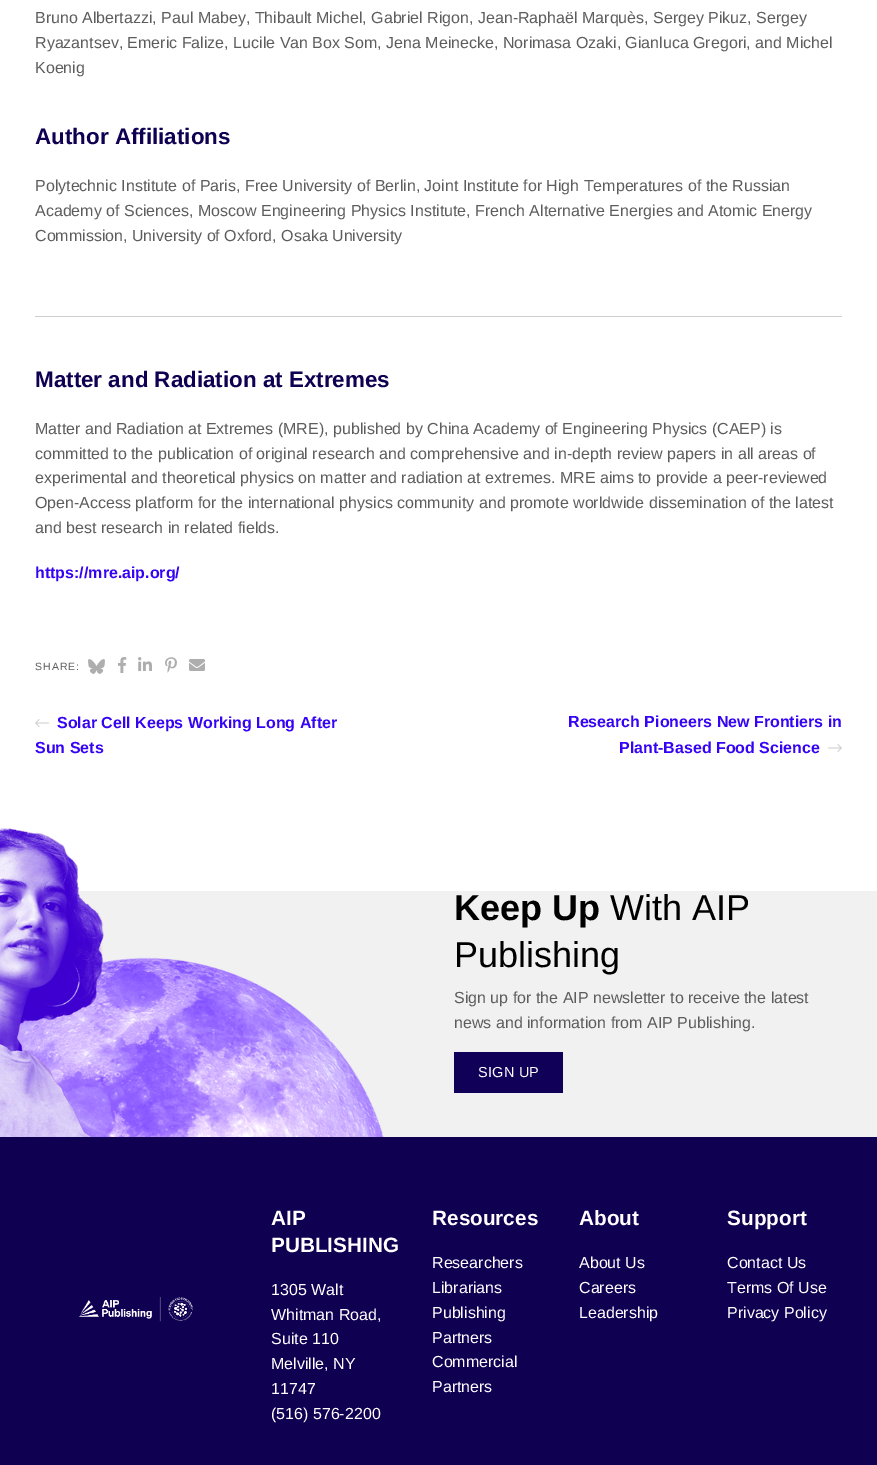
%!PS-Adobe-3.0
%%BoundingBox: 0 0 877 1465
%%LanguageLevel: 3
%%Pages: 1
%%EndComments
%%BeginProlog
/setink { dup -16 bitshift 255 div exch dup -8 bitshift 255 and 255 div exch 255 and 255 div setrgbcolor } def
/usefont { [ exch dup neg 0 0 3 -1 roll 0 0 ] selectfont } def
/drawimage { 5 dict begin { /h /w /y /x /name } { exch def } forall
  gsave x y translate w h scale
  w h 8 [w 0 0 h 0 0] name (r) file false 3 colorimage grestore end } def
%%EndProlog
%%BeginSetup
<< /PageSize [877 1465] >> setpagedevice
%%EndSetup
%%Page: 1 1
0 1465 translate 1 -1 scale
4 setmiterlimit
16#FFFFFF setink
0 0 877 1465 rectfill
/LiberationSans-Regular 16 usefont
16#5D5D5D setink
[
    [(Bruno Albertazzi, Paul Mabey, Thibault Michel, Gabriel Rigon, Jean-Raphaël Marquès, Sergey Pikuz, Sergey) 35 23]
    [(Ryazantsev, Emeric Falize, Lucile Van Box Som, Jena Meinecke, Norimasa Ozaki, Gianluca Gregori, and Michel) 35 48]
    [(Koenig) 35 73]
] { aload pop moveto show } forall
/LiberationSans-Bold 22.4 usefont
16#0F0052 setink
35 144 moveto (Author Affiliations) show
/LiberationSans-Regular 16 usefont
16#5D5D5D setink
[
    [(Polytechnic Institute of Paris, Free University of Berlin, Joint Institute for High Temperatures of the Russian) 35 191]
    [(Academy of Sciences, Moscow Engineering Physics Institute, French Alternative Energies and Atomic Energy) 35 216]
    [(Commission, University of Oxford, Osaka University) 35 241]
] { aload pop moveto show } forall
16#CECECE setink
35 316 807 1 rectfill
/LiberationSans-Bold 22.4 usefont
16#0F0052 setink
35 387 moveto (Matter and Radiation at Extremes) show
/LiberationSans-Regular 16 usefont
16#5D5D5D setink
[
    [(Matter and Radiation at Extremes \(MRE\), published by China Academy of Engineering Physics \(CAEP\) is) 35 434]
    [(committed to the publication of original research and comprehensive and in-depth review papers in all areas of) 35 459]
    [(experimental and theoretical physics on matter and radiation at extremes. MRE aims to provide a peer-reviewed) 35 483]
    [(Open-Access platform for the international physics community and promote worldwide dissemination of the latest) 35 508]
    [(and best research in related fields.) 35 533]
] { aload pop moveto show } forall
/LiberationSans-Bold 16 usefont
16#3604F4 setink
35 578 moveto (https://mre.aip.org/) show
/LiberationSans-Regular 10.5 usefont
16#5D5D5D setink
35 670 moveto 1 0 (SHARE:) ashow
(img1.raw) 88 659 17 15 drawimage
(img2.raw) 118 657 9 16 drawimage
(img3.raw) 138 657 14 14 drawimage
(img4.raw) 165 657 12 16 drawimage
(img5.raw) 189 659 16 12 drawimage
(img6.raw) 35 719 14 8 drawimage
/LiberationSans-Bold 16 usefont
16#3604F4 setink
[
    [(Solar Cell Keeps Working Long After) 57 728]
    [(Sun Sets) 35 753]
    [(Research Pioneers New Frontiers in) 568 727]
    [(Plant-Based Food Science) 619 753]
] { aload pop moveto show } forall
(img7.raw) 828 744 14 8 drawimage
16#0F0052 setink
0 1137 877 328 rectfill
16#F1F1F1 setink
76 891 801 246 rectfill
(img8.raw) 0 828 384 309 drawimage
/LiberationSans-Bold 36 usefont
16#000000 setink
454 920 moveto (Keep Up) show
/LiberationSans-Regular 36 usefont
610 920 moveto (With AIP) show
454 967 moveto (Publishing) show
/LiberationSans-Regular 16 usefont
16#5D5D5D setink
454 1003 moveto (Sign up for the AIP newsletter to receive the latest) show
454 1028 moveto (news and information from AIP Publishing.) show
16#110057 setink
454 1052 109 41 rectfill
/LiberationSans-Regular 14.5 usefont
16#FFFFFF setink
478 1077 moveto 0.25 0 (SIGN UP) ashow
(img9.raw) 78 1297 115 25 drawimage
/LiberationSans-Bold 20.75 usefont
271 1225 moveto (AIP) show
271 1252 moveto (PUBLISHING) show
/LiberationSans-Regular 16 usefont
[
    [(1305 Walt) 271 1295]
    [(Whitman Road,) 271 1320]
    [(Suite 110) 271 1344]
    [(Melville, NY) 271 1369]
    [(11747) 271 1394]
    [(\(516\) 576-2200) 271 1419]
] { aload pop moveto show } forall
/LiberationSans-Bold 20.75 usefont
432 1225 moveto (Resources) show
/LiberationSans-Regular 16 usefont
[
    [(Researchers) 432 1268]
    [(Librarians) 432 1293]
    [(Publishing) 432 1318]
    [(Partners) 432 1343]
    [(Commercial) 432 1367]
    [(Partners) 432 1392]
] { aload pop moveto show } forall
/LiberationSans-Bold 20.75 usefont
579 1225 moveto (About) show
/LiberationSans-Regular 16 usefont
[
    [(About Us) 579 1268]
    [(Careers) 579 1293]
    [(Leadership) 579 1318]
] { aload pop moveto show } forall
/LiberationSans-Bold 20.75 usefont
727 1225 moveto (Support) show
/LiberationSans-Regular 16 usefont
[
    [(Contact Us) 727 1268]
    [(Terms Of Use) 727 1293]
    [(Privacy Policy) 727 1318]
] { aload pop moveto show } forall
showpage
%%EOF
